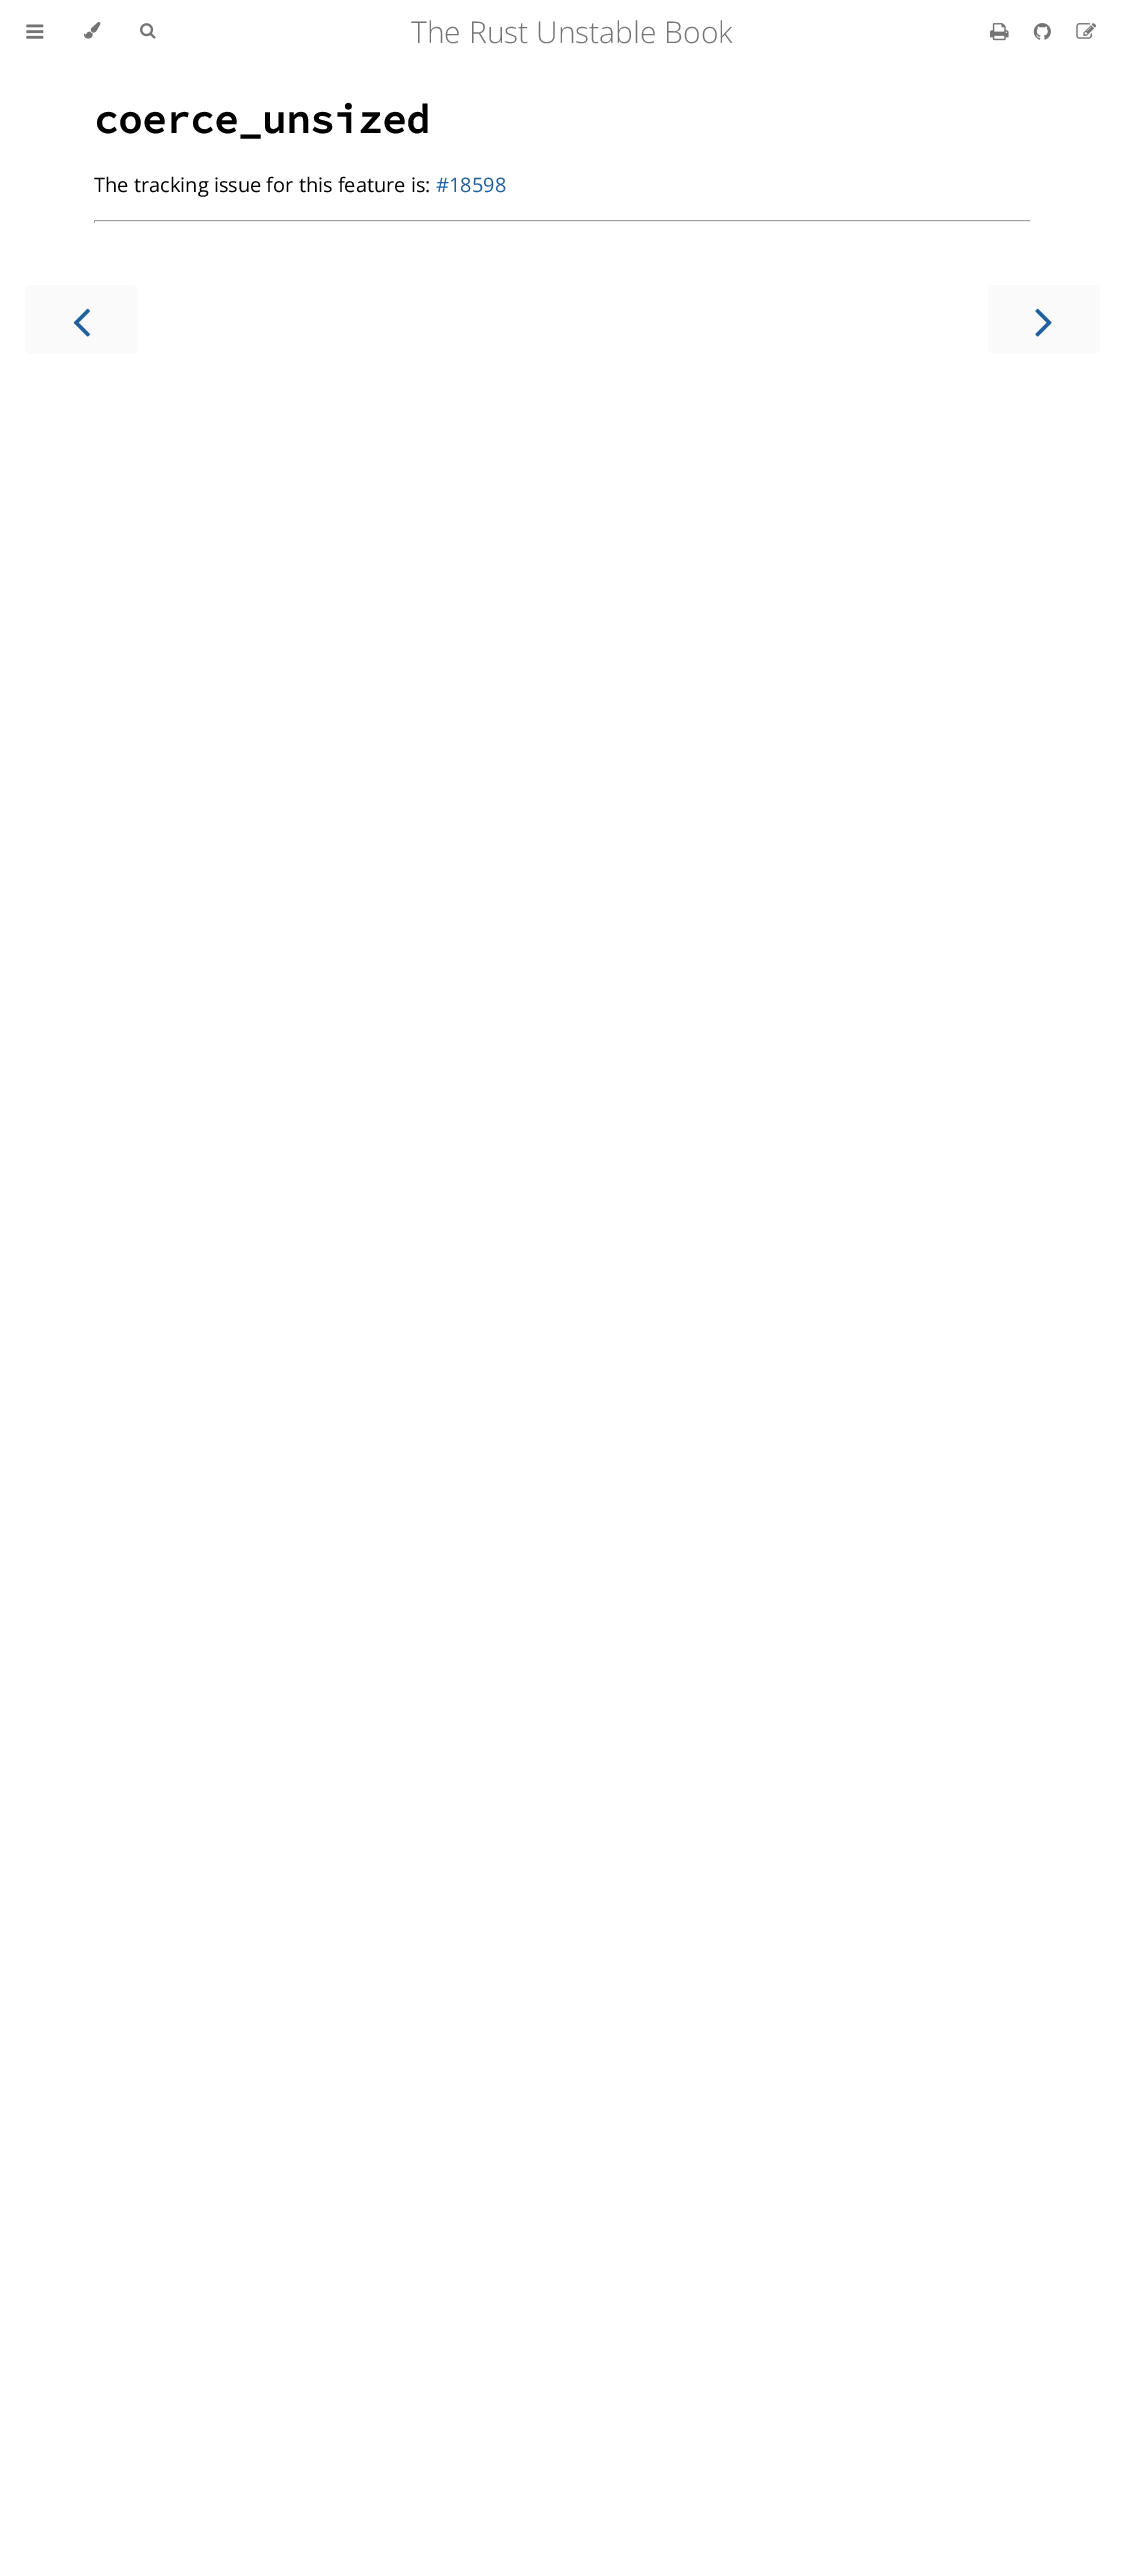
%!PS-Adobe-3.0
%%BoundingBox: 0 0 1124 2556
%%LanguageLevel: 3
%%Pages: 1
%%EndComments
%%BeginProlog
/setink { dup -16 bitshift 255 div exch dup -8 bitshift 255 and 255 div exch 255 and 255 div setrgbcolor } def
/usefont { [ exch dup neg 0 0 3 -1 roll 0 0 ] selectfont } def
/rrect { 5 dict begin { /r /h /w /y /x } { exch def } forall
  x r add y moveto x w add y 2 copy h add r arct x w add y h add x 1 index r arct
  x y h add x y r arct x y 2 copy exch w add exch r arct closepath end } def
/drawimage { 5 dict begin { /h /w /y /x /name } { exch def } forall
  gsave x y translate w h scale
  w h 8 [w 0 0 h 0 0] name (r) file false 3 colorimage grestore end } def
%%EndProlog
%%BeginSetup
<< /PageSize [1124 2556] >> setpagedevice
%%EndSetup
%%Page: 1 1
0 2556 translate 1 -1 scale
4 setmiterlimit
16#FFFFFF setink
0 0 1124 2556 rectfill
(img1.raw) 26 24 18 15 drawimage
(img2.raw) 83 22 18 17 drawimage
(img3.raw) 140 23 16 16 drawimage
/OpenSans-Light 30 usefont
16#747474 setink
411 43 moveto (The Rust Unstable Book) show
(img4.raw) 990 23 19 18 drawimage
(img5.raw) 1033 23 18 17 drawimage
(img6.raw) 1076 23 21 16 drawimage
/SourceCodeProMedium-Bold 40 usefont
16#000000 setink
94 133 moveto (coerce_unsized) show
/OpenSans-Regular 20 usefont
94 192 moveto (The tracking issue for this feature is:) show
16#20609F setink
436 192 moveto (#18598) show
[
    [94 220 937 1 16#9F9F9F]
    [1030 220 1 3 16#EEEEEE]
    [94 221 937 1 16#EEEEEE]
    [94 220 1 3 16#9F9F9F]
] { aload pop setink rectfill } forall
16#FAFAFA setink
25 285 113 69 6 rrect fill
(img7.raw) 73 308 17 29 drawimage
988 285 112 69 6 rrect fill
(img8.raw) 1035 308 17 29 drawimage
showpage
%%EOF
